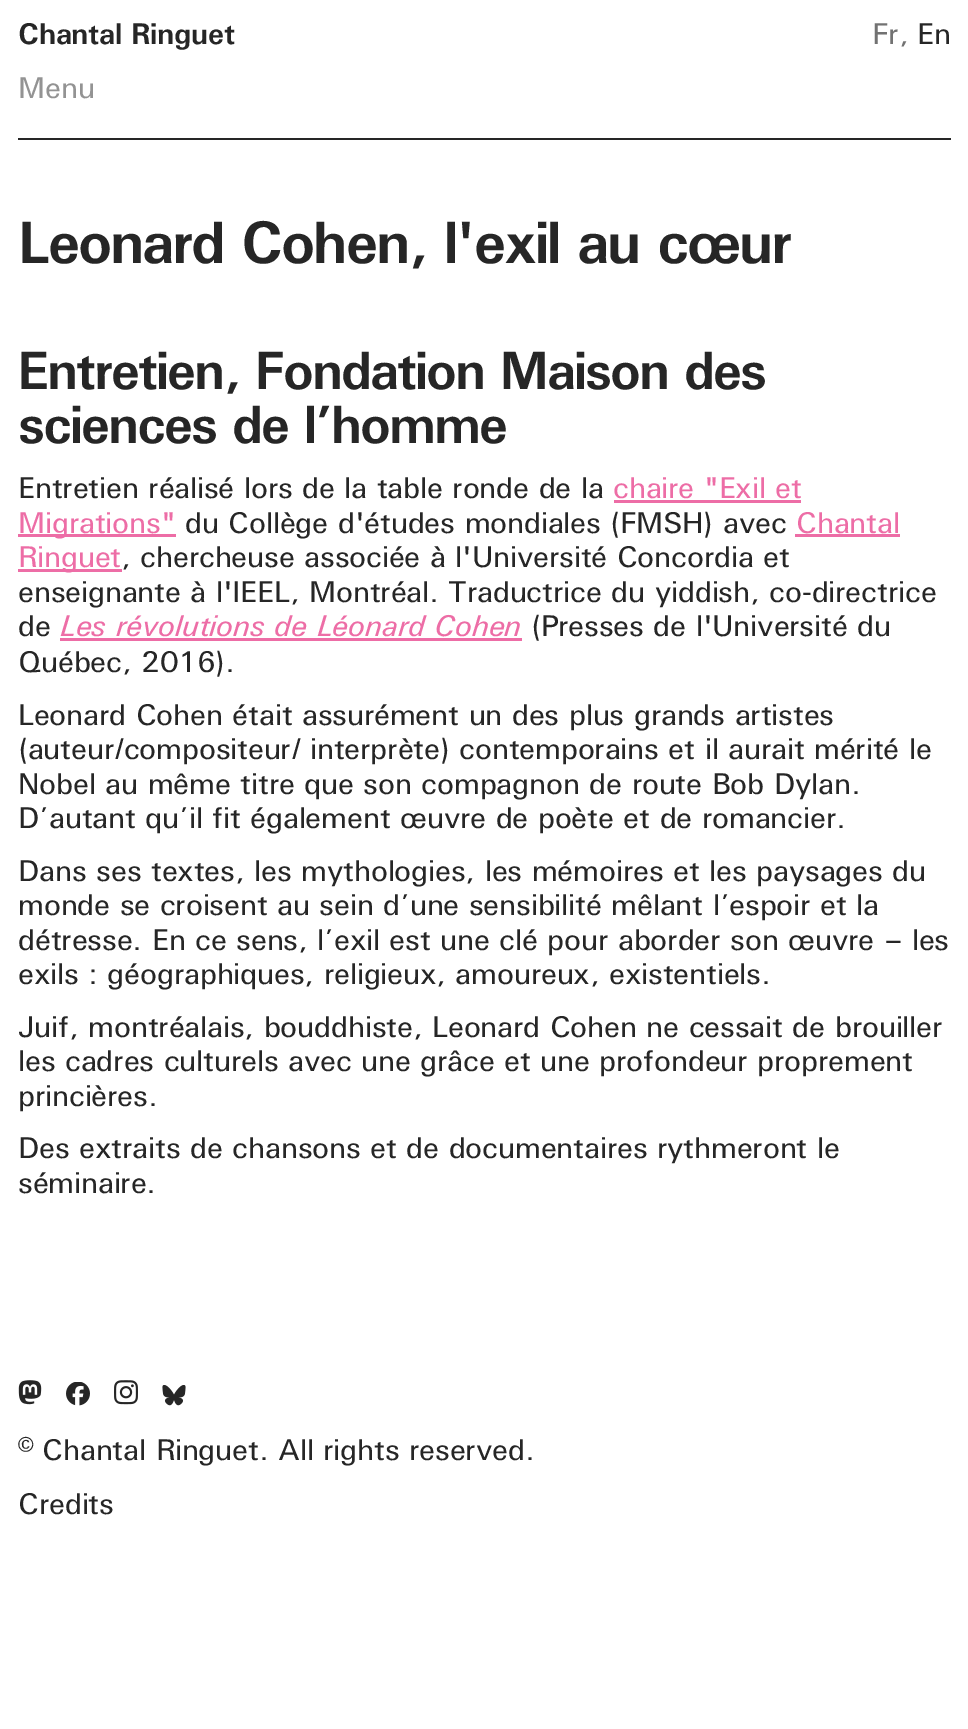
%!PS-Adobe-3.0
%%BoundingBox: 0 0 968 1729
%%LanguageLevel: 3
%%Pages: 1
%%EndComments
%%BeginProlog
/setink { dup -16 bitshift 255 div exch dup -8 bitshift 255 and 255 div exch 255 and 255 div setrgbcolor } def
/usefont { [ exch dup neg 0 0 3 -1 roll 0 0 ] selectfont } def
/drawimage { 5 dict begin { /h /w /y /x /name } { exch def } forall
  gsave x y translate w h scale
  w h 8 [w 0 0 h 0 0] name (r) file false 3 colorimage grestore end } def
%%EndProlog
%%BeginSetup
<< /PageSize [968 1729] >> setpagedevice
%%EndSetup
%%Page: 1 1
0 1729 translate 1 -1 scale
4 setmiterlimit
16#FFFFFF setink
0 0 968 1729 rectfill
16#262626 setink
18 138 933 2 rectfill
/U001-Bold 30 usefont
18 44 moveto -0.3 0 (Chantal Ringuet) ashow
/U001-Regular 30 usefont
16#727272 setink
872 44 moveto -0.3 0 (Fr,) ashow
16#262626 setink
917 44 moveto -0.3 0 (En) ashow
16#939393 setink
18 98 moveto (Menu) show
/U001-Bold 60 usefont
16#262626 setink
18 263 moveto -2.1 0 (Leonard Cohen, l'exil au cœur) ashow
/U001-Bold 54 usefont
18 389 moveto -1.9 0 (Entretien, Fondation Maison des) ashow
18 443 moveto -1.9 0 (sciences de l’homme) ashow
/U001-Regular 30 usefont
18 498 moveto -0.3 0 (Entretien réalisé lors de la table ronde de la) ashow
16#ED6DA6 setink
613 498 moveto -0.3 0 (chaire "Exil et) ashow
614 500 187 3 rectfill
18 534 158 3 rectfill
18 533 moveto -0.3 0 (Migrations") ashow
16#262626 setink
185 533 moveto -0.3 0 (du Collège d'études mondiales \(FMSH\) avec) ashow
16#ED6DA6 setink
796 533 moveto -0.3 0 (Chantal) ashow
795 534 105 3 rectfill
18 569 104 3 rectfill
18 567 moveto -0.3 0 (Ringuet) ashow
16#262626 setink
121 567 moveto -0.3 0 (, chercheuse associée à l'Université Concordia et) ashow
18 602 moveto -0.3 0 (enseignante à l'IEEL, Montréal. Traductrice du yiddish, co-directrice) ashow
18 636 moveto -0.3 0 (de) ashow
/U001-Italic 30 usefont
16#ED6DA6 setink
60 636 moveto -0.3 0 (Les révolutions de Léonard Cohen) ashow
60 638 462 3 rectfill
/U001-Regular 30 usefont
16#262626 setink
531 636 moveto -0.3 0 (\(Presses de l'Université du) ashow
18 672 moveto -0.3 0 (Québec, 2016\).) ashow
18 725 moveto -0.3 0 (Leonard Cohen était assurément un des plus grands artistes) ashow
18 759 moveto -0.3 0 (\(auteur/compositeur/ interprète\) contemporains et il aurait mérité le) ashow
18 794 moveto -0.3 0 (Nobel au même titre que son compagnon de route Bob Dylan.) ashow
18 828 moveto -0.3 0 (D’autant qu’il fit également œuvre de poète et de romancier.) ashow
18 881 moveto -0.3 0 (Dans ses textes, les mythologies, les mémoires et les paysages du) ashow
18 915 moveto -0.3 0 (monde se croisent au sein d’une sensibilité mêlant l’espoir et la) ashow
18 950 moveto -0.3 0 (détresse. En ce sens, l’exil est une clé pour aborder son œuvre – les) ashow
18 984 moveto -0.3 0 (exils : géographiques, religieux, amoureux, existentiels.) ashow
18 1037 moveto -0.3 0 (Juif, montréalais, bouddhiste, Leonard Cohen ne cessait de brouiller) ashow
18 1071 moveto -0.3 0 (les cadres culturels avec une grâce et une profondeur proprement) ashow
18 1106 moveto -0.3 0 (princières.) ashow
18 1158 moveto -0.3 0 (Des extraits de chansons et de documentaires rythmeront le) ashow
18 1193 moveto -0.3 0 (séminaire.) ashow
(img1.raw) 18 1380 24 25 drawimage
(img2.raw) 66 1382 24 24 drawimage
(img3.raw) 114 1380 24 25 drawimage
(img4.raw) 162 1385 24 21 drawimage
18 1460 moveto -0.3 0 (© Chantal Ringuet. All rights reserved.) ashow
18 1514 moveto -0.3 0 (Credits) ashow
showpage
%%EOF
